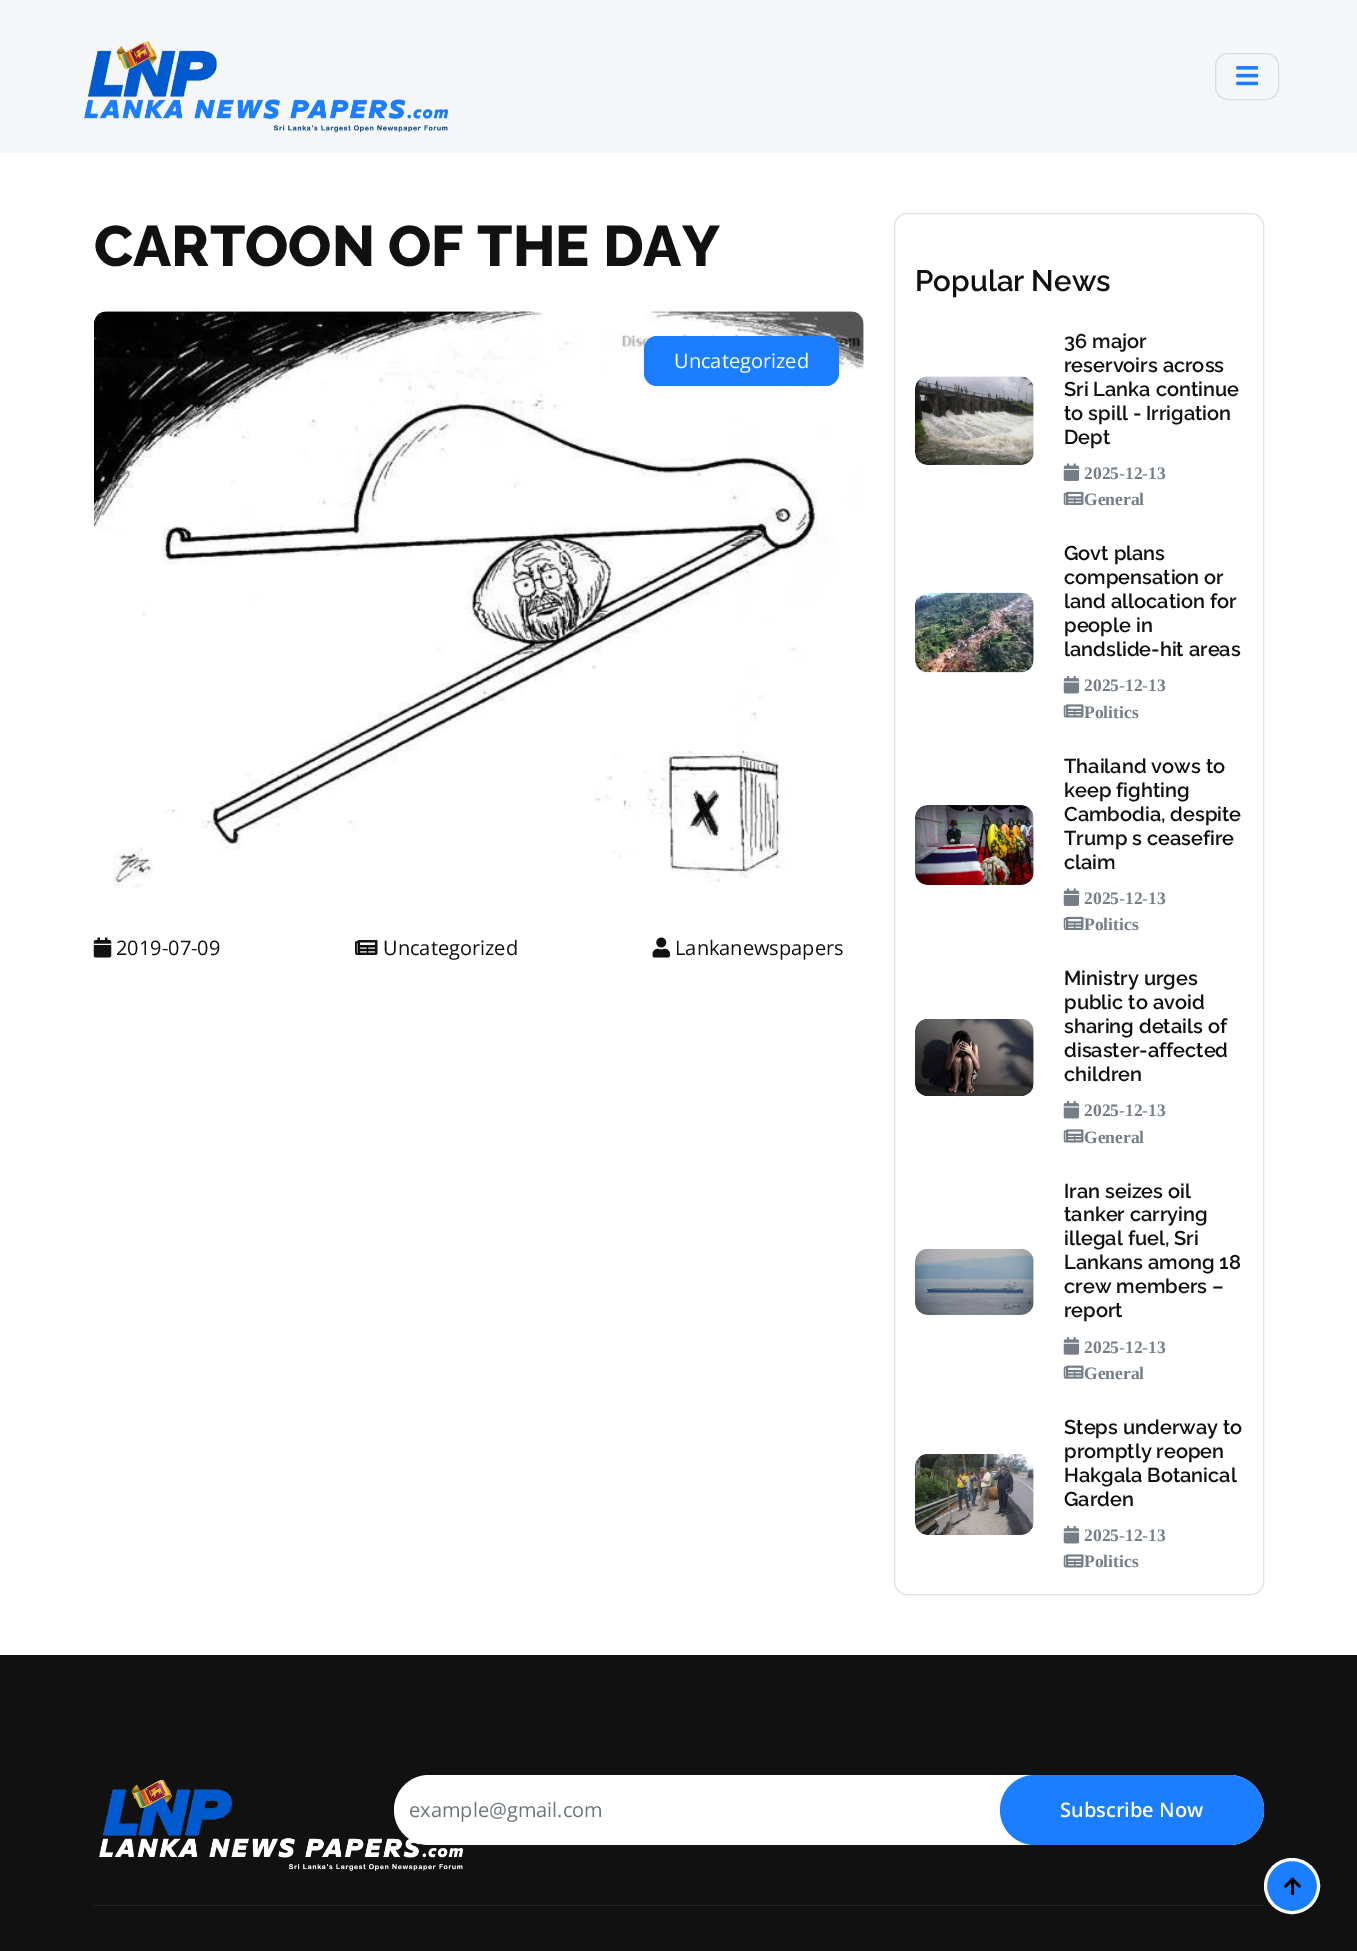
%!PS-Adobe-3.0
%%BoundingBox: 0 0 1357 1951
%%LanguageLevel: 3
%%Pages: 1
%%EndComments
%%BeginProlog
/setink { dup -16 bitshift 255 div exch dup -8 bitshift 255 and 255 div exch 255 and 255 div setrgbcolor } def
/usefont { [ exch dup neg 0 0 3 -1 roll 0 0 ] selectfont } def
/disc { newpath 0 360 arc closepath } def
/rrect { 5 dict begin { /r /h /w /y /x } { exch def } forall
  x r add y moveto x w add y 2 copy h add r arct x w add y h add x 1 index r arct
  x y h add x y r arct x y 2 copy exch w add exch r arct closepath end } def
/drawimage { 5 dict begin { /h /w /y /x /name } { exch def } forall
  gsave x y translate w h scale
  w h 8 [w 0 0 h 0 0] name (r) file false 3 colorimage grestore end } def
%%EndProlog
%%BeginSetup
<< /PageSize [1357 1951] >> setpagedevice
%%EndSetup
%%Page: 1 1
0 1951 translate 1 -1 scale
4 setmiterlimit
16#FFFFFF setink
0 0 1357 1951 rectfill
16#F4F6F8 setink
0 0 1357 153 rectfill
(img1.raw) 84 41 365 92 drawimage
16#DCDDDF setink
1215.5 53.5 63 46 12.5 rrect stroke
(img2.raw) 1236 66 23 20 drawimage
/Raleway-ExtraBold 57 usefont
16#111111 setink
94 266 moveto (CARTOON OF THE DAY) show
(img3.raw) 94 311 770 577 drawimage
16#1B7DFF setink
644 336 195 50 13 rrect fill
/OpenSans-Regular 20 usefont
16#FFFFFF setink
674 368 moveto (Uncategorized) show
(img4.raw) 93 937 19 21 drawimage
16#111111 setink
116 955 moveto (2019-07-09) show
(img5.raw) 355 940 23 15 drawimage
383 955 moveto (Uncategorized) show
(img6.raw) 652 937 18 21 drawimage
675 955 moveto (Lankanewspapers) show
16#DEE2E6 setink
894.5 213.5 369 1381 12.5 rrect stroke
/Raleway-SemiBold 29.5 usefont
16#111111 setink
915 291 moveto (Popular News) show
(img7.raw) 915 376 119 89 drawimage
/Raleway-SemiBold 20 usefont
[
    [(36 major) 1064 348]
    [(reservoirs across) 1064 372]
    [(Sri Lanka continue) 1064 396]
    [(to spill - Irrigation) 1064 420]
    [(Dept) 1064 444]
] { aload pop moveto show } forall
(img8.raw) 1063 463 17 18 drawimage
/LiberationSerif-Bold 17.5 usefont
16#747D88 setink
1084 479 moveto (2025-12-13) show
(img9.raw) 1063 491 21 14 drawimage
1084 505 moveto (General) show
(img10.raw) 915 592 119 81 drawimage
/Raleway-SemiBold 20 usefont
16#111111 setink
[
    [(Govt plans) 1064 560]
    [(compensation or) 1064 584]
    [(land allocation for) 1064 608]
    [(people in) 1064 632]
    [(landslide-hit areas) 1064 656]
] { aload pop moveto show } forall
(img11.raw) 1063 675 17 19 drawimage
/LiberationSerif-Bold 17.5 usefont
16#747D88 setink
1084 691 moveto (2025-12-13) show
(img12.raw) 1063 704 21 14 drawimage
1084 718 moveto (Politics) show
(img13.raw) 915 805 119 80 drawimage
/Raleway-SemiBold 20 usefont
16#111111 setink
[
    [(Thailand vows to) 1064 773]
    [(keep fighting) 1064 797]
    [(Cambodia, despite) 1064 821]
    [(Trump s ceasefire) 1064 845]
    [(claim) 1064 869]
] { aload pop moveto show } forall
(img8.raw) 1063 888 17 18 drawimage
/LiberationSerif-Bold 17.5 usefont
16#747D88 setink
1084 904 moveto (2025-12-13) show
(img9.raw) 1063 916 21 14 drawimage
1084 930 moveto (Politics) show
(img14.raw) 915 1019 119 77 drawimage
/Raleway-SemiBold 20 usefont
16#111111 setink
[
    [(Ministry urges) 1064 985]
    [(public to avoid) 1064 1009]
    [(sharing details of) 1064 1033]
    [(disaster-affected) 1064 1057]
    [(children) 1064 1081]
] { aload pop moveto show } forall
(img11.raw) 1063 1100 17 19 drawimage
/LiberationSerif-Bold 17.5 usefont
16#747D88 setink
1084 1116 moveto (2025-12-13) show
(img12.raw) 1063 1129 21 14 drawimage
1084 1143 moveto (General) show
(img15.raw) 915 1249 119 66 drawimage
/Raleway-SemiBold 20 usefont
16#111111 setink
[
    [(Iran seizes oil) 1064 1198]
    [(tanker carrying) 1064 1221]
    [(illegal fuel, Sri) 1064 1245]
    [(Lankans among 18) 1064 1269]
    [(crew members –) 1064 1293]
    [(report) 1064 1317]
] { aload pop moveto show } forall
(img16.raw) 1063 1337 17 18 drawimage
/LiberationSerif-Bold 17.5 usefont
16#747D88 setink
1084 1353 moveto (2025-12-13) show
(img17.raw) 1063 1365 21 14 drawimage
1084 1379 moveto (General) show
(img18.raw) 915 1454 119 81 drawimage
/Raleway-SemiBold 20 usefont
16#111111 setink
[
    [(Steps underway to) 1064 1434]
    [(promptly reopen) 1064 1458]
    [(Hakgala Botanical) 1064 1482]
    [(Garden) 1064 1506]
] { aload pop moveto show } forall
(img11.raw) 1063 1525 17 19 drawimage
/LiberationSerif-Bold 17.5 usefont
16#747D88 setink
1084 1541 moveto (2025-12-13) show
(img12.raw) 1063 1554 21 14 drawimage
1084 1567 moveto (Politics) show
16#111111 setink
0 1655 1357 296 rectfill
16#242424 setink
94 1905 1170 1 rectfill
(img19.raw) 99 1780 365 91 drawimage
16#FFFFFF setink
394 1775 870 70 35 rrect fill
/OpenSans-Regular 20 usefont
16#6C757D setink
409 1817 moveto (example@gmail.com) show
16#1B7DFF setink
1000 1775 264 70 35 rrect fill
/OpenSans-SemiBold 20 usefont
16#FFFFFF setink
1060 1817 moveto (Subscribe Now) show
16#1B7DFF setink
1292 1886 26.5 disc gsave fill grestore
16#FFFFFF setink
3 setlinewidth
stroke
(img20.raw) 1284 1877 17 18 drawimage
showpage
%%EOF
